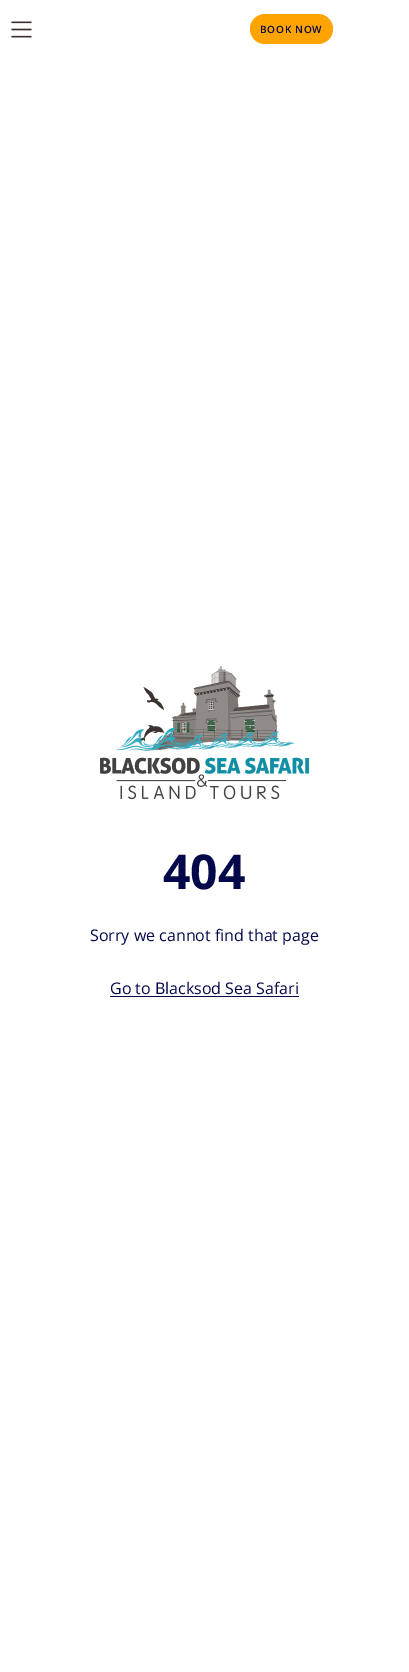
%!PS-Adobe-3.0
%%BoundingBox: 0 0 409 1672
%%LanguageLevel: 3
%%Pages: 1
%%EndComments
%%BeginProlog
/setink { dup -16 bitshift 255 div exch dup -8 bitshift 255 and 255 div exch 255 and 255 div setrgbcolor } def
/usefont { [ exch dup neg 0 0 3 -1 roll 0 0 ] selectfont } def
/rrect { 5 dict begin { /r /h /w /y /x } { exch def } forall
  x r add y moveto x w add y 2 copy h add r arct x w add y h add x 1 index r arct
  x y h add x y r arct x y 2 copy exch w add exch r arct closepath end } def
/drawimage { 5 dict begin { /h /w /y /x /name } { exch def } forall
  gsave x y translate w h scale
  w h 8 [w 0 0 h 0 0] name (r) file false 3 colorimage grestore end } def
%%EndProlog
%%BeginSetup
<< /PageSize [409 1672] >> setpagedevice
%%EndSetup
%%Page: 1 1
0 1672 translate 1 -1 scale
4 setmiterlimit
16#FFFFFF setink
0 0 409 1672 rectfill
(img1.raw) 11 21 21 17 drawimage
16#FFA300 setink
250 14 83 30 15 rrect fill
/OpenSans-SemiBold 10 usefont
16#03084B setink
260 33 moveto 0.75 0 (BOOK NOW) ashow
(img2.raw) 100 664 210 136 drawimage
/OpenSans-Bold 48 usefont
163 889 moveto (404) show
/OpenSans-Regular 16 usefont
90 941 moveto (Sorry we cannot find that page) show
110 994 moveto (Go to Blacksod Sea Safari) show
110 996 189 1 rectfill
showpage
%%EOF
